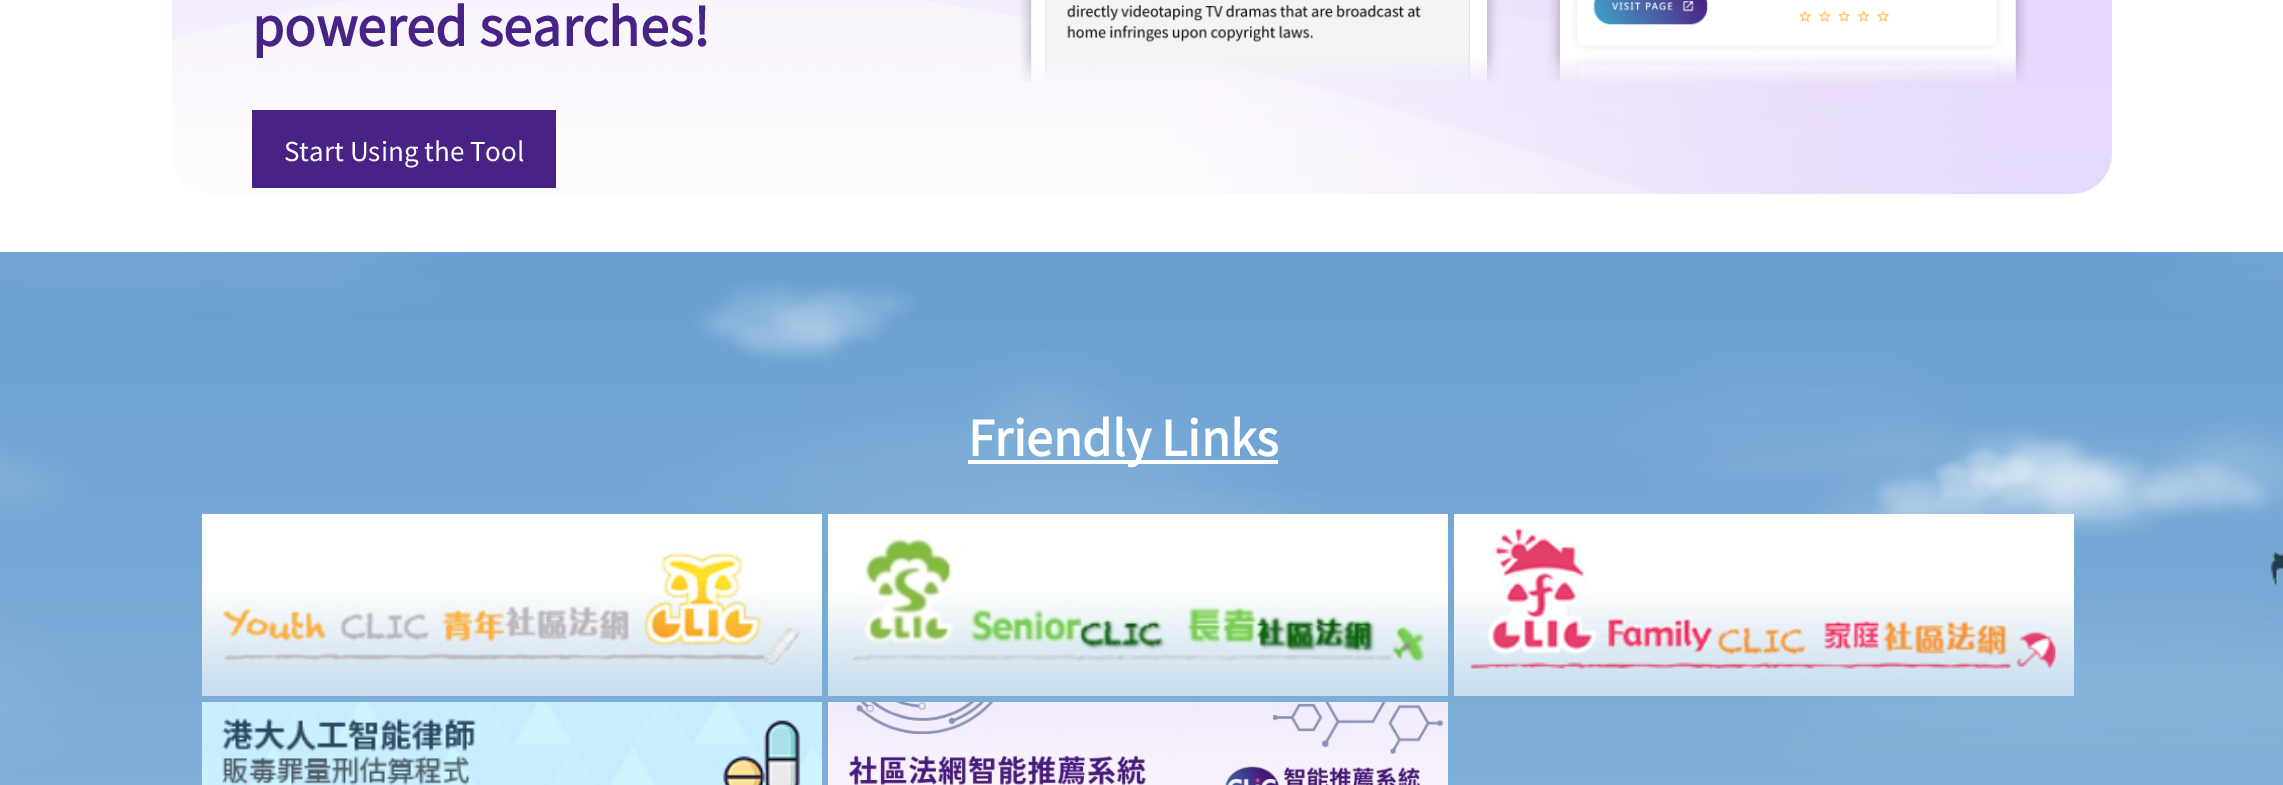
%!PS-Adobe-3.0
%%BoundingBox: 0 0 2283 785
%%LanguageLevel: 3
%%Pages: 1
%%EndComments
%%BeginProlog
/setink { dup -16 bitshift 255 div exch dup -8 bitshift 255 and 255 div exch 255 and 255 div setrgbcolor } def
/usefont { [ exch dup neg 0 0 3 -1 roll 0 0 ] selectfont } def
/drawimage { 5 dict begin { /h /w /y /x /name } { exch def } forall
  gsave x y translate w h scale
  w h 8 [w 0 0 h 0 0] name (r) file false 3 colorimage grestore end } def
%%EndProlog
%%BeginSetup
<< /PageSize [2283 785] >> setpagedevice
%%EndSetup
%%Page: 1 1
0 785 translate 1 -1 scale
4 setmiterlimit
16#FFFFFF setink
0 0 2283 785 rectfill
(img1.raw) 172 0 1940 194 drawimage
/NotoSansHK-Bold 52 usefont
16#482284 setink
252 46 moveto (powered searches!) show
252 110 304 78 rectfill
/NotoSansHK-Thin 26 usefont
16#FFFFFF setink
284 161 moveto (Start Using the Tool) show
(img2.raw) 1020 0 1007 82 drawimage
(img3.raw) 0 252 2283 533 drawimage
968 460 310 4 rectfill
/NotoSansHK-Bold 48 usefont
968 456 moveto (Friendly Links) show
(img4.raw) 202 514 620 182 drawimage
(img5.raw) 828 514 620 182 drawimage
(img6.raw) 1454 514 620 182 drawimage
(img7.raw) 202 702 620 83 drawimage
(img8.raw) 828 702 620 83 drawimage
showpage
%%EOF
